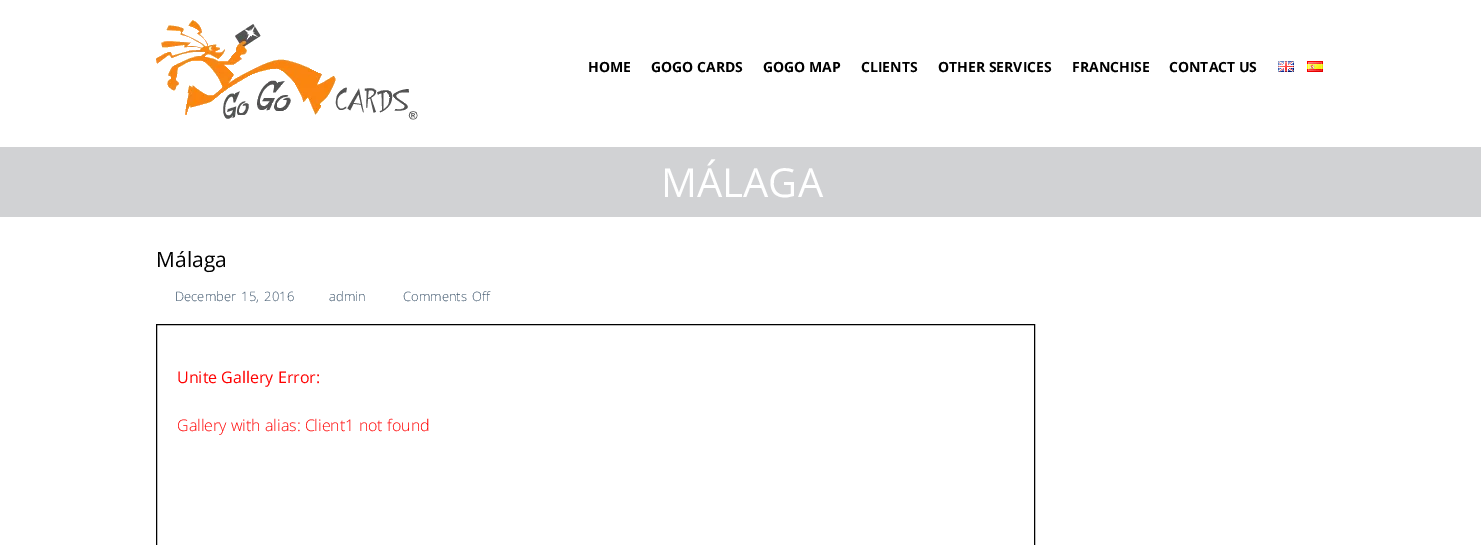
%!PS-Adobe-3.0
%%BoundingBox: 0 0 1481 545
%%LanguageLevel: 3
%%Pages: 1
%%EndComments
%%BeginProlog
/setink { dup -16 bitshift 255 div exch dup -8 bitshift 255 and 255 div exch 255 and 255 div setrgbcolor } def
/usefont { [ exch dup neg 0 0 3 -1 roll 0 0 ] selectfont } def
/drawimage { 5 dict begin { /h /w /y /x /name } { exch def } forall
  gsave x y translate w h scale
  w h 8 [w 0 0 h 0 0] name (r) file false 3 colorimage grestore end } def
%%EndProlog
%%BeginSetup
<< /PageSize [1481 545] >> setpagedevice
%%EndSetup
%%Page: 1 1
0 545 translate 1 -1 scale
4 setmiterlimit
16#FFFFFF setink
0 0 1481 545 rectfill
(img1.raw) 156 20 262 100 drawimage
/OpenSans-Bold 14 usefont
16#000000 setink
[
    [(HOME) 588 72]
    [(GOGO CARDS) 651 72]
    [(GOGO MAP) 763 72]
    [(CLIENTS) 861 72]
    [(OTHER SERVICES) 938 72]
    [(FRANCHISE) 1072 72]
    [(CONTACT US) 1169 72]
] { aload pop moveto show } forall
(img2.raw) 1278 61 16 11 drawimage
(img3.raw) 1307 61 16 11 drawimage
16#D1D2D4 setink
0 147 1481 70 rectfill
/OpenSans-Regular 40 usefont
16#FFFFFF setink
661 197 moveto (MÁLAGA) show
/OpenSans-Regular 21 usefont
16#000000 setink
156 267 moveto (Málaga) show
/OpenSans-Light 13 usefont
16#3C546B setink
175 301 moveto 2 0 32 (December 15, 2016) widthshow
329 301 moveto (admin) show
403 301 moveto 2 0 32 (Comments Off) widthshow
16#000000 setink
156.5 324.5 878 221 rectstroke
/OpenSans-Regular 16 usefont
16#FF0000 setink
177 383 moveto (Unite Gallery Error:) show
/OpenSans-Light 16 usefont
177 431 moveto (Gallery with alias: Client1 not found) show
showpage
%%EOF
